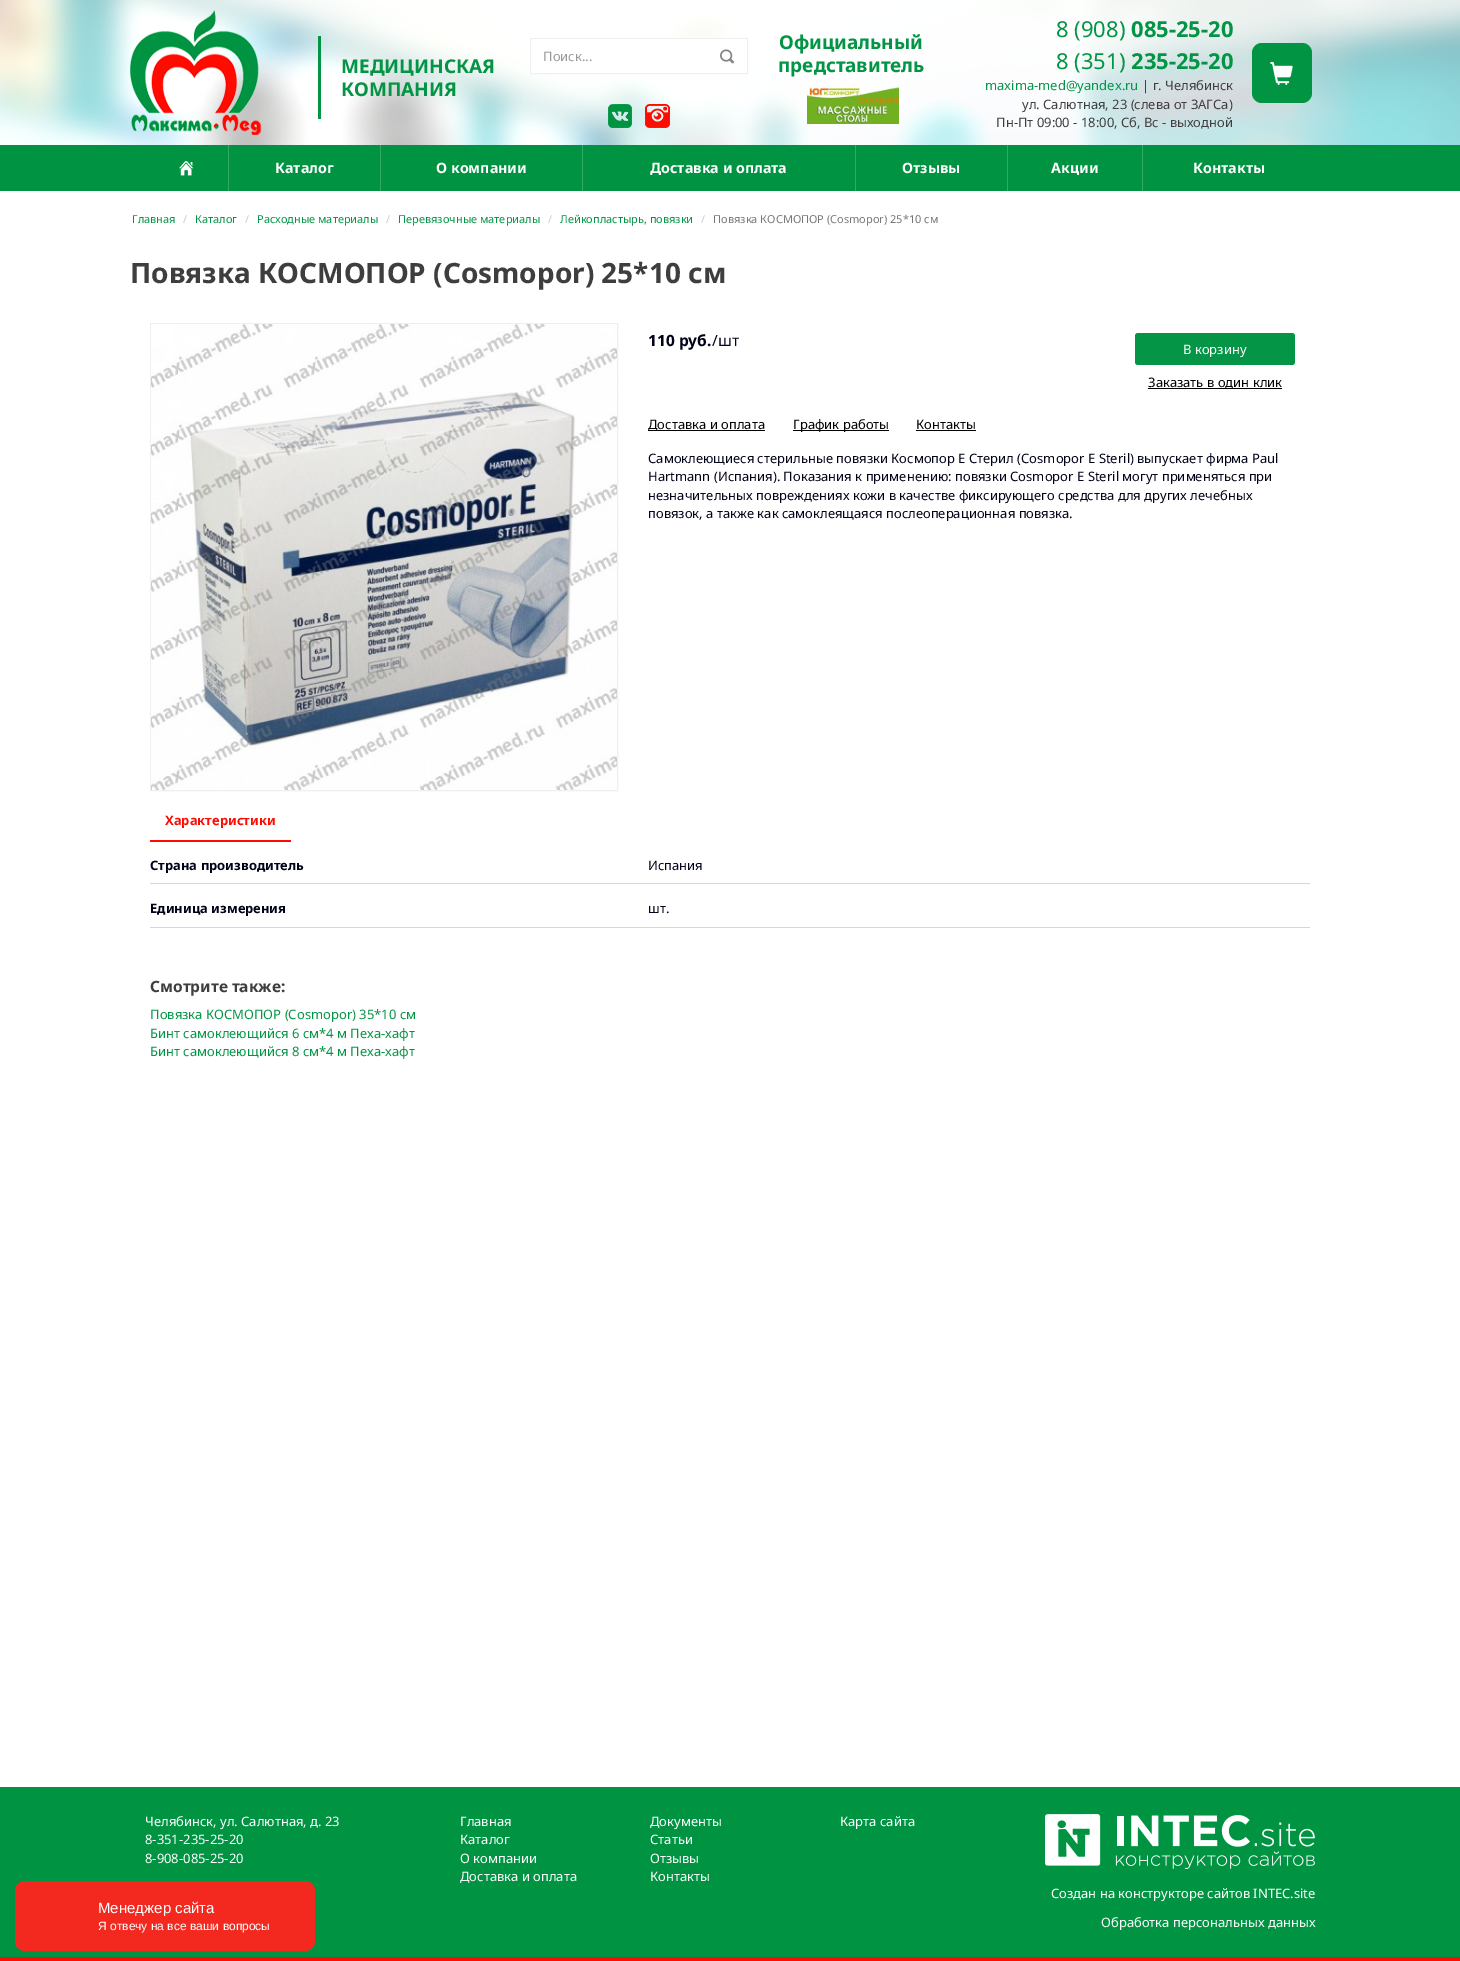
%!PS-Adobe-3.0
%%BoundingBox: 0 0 1460 1961
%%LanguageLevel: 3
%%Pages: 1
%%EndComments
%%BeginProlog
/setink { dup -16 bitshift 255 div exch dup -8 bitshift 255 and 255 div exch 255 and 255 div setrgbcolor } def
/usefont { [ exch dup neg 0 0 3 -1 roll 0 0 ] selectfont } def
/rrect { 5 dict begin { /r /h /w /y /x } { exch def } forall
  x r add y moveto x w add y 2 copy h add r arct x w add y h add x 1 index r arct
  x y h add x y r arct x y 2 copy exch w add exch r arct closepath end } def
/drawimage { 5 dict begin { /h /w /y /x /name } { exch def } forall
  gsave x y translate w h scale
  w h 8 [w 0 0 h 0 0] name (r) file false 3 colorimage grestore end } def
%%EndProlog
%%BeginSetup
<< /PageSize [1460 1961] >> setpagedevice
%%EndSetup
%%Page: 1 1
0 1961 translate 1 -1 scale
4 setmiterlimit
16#FFFFFF setink
0 0 1460 1961 rectfill
(img1.raw) 0 0 1460 145 drawimage
(img2.raw) 130 10 131 125 drawimage
16#F0F0F0 setink
530.5 38.5 217 35 rectstroke
16#FFFFFF setink
534 39 moveto 708 39 lineto 708 73 lineto 534 73 lineto 532.5 73 531 71.5 531 70 curveto 531 42 lineto 531 40.5 532.5 39 534 39 curveto closepath fill
/NotoSans-Regular 13 usefont
16#999999 setink
543 61 moveto (Поиск...) show
16#FFFFFF setink
707 39 moveto 744 39 lineto 745.5 39 747 40.5 747 42 curveto 747 70 lineto 747 71.5 745.5 73 744 73 curveto 707 73 lineto closepath fill
(img3.raw) 720 49 14 15 drawimage
(img4.raw) 608 104 24 24 drawimage
(img5.raw) 645 104 25 24 drawimage
/NotoSans-Bold 19 usefont
16#039545 setink
779 49 moveto (Официальный) show
778 72 moveto (представитель) show
(img6.raw) 807 86 92 38 drawimage
/NotoSans-Regular 22 usefont
1056 37 moveto (8 \(908\)) show
/NotoSans-Bold 22 usefont
1131 37 moveto (085-25-20) show
/NotoSans-Regular 22 usefont
1056 69 moveto (8 \(351\)) show
/NotoSans-Bold 22 usefont
1131 69 moveto (235-25-20) show
/NotoSans-Regular 13 usefont
985 90 moveto (maxima-med@yandex.ru) show
16#3E3E3E setink
[
    [(| г. Челябинск) 1142 90]
    [(ул. Салютная, 23 \(слева от ЗАГСа\)) 1022 109]
    [(Пн-Пт 09:00 - 18:00, Сб, Вс - выходной) 996 127]
] { aload pop moveto show } forall
16#019543 setink
1252 43 60 60 10 rrect fill
(img7.raw) 1270 62 23 23 drawimage
16#039545 setink
318 36 3 83 rectfill
/NotoSans-Bold 19 usefont
341 73 moveto (МЕДИЦИНСКАЯ) show
341 96 moveto (КОМПАНИЯ) show
16#009442 setink
0 145 1460 46 rectfill
(img8.raw) 179 161 15 15 drawimage
16#33A968 setink
228 145 1 46 rectfill
/NotoSans-Bold 14.25 usefont
16#FFFFFF setink
275 173 moveto (Каталог) show
16#33A968 setink
380 145 1 46 rectfill
16#FFFFFF setink
436 173 moveto (О компании) show
16#33A968 setink
582 145 1 46 rectfill
16#FFFFFF setink
650 173 moveto (Доставка и оплата) show
16#33A968 setink
855 145 1 46 rectfill
16#FFFFFF setink
902 173 moveto (Отзывы) show
16#33A968 setink
1007 145 1 46 rectfill
16#FFFFFF setink
1051 173 moveto (Акции) show
16#33A968 setink
1142 145 1 46 rectfill
16#FFFFFF setink
1193 173 moveto (Контакты) show
/NotoSans-Regular 11 usefont
16#039545 setink
132 223 moveto (Главная) show
16#CCCCCC setink
183 223 moveto (/) show
16#039545 setink
195 223 moveto (Каталог) show
16#CCCCCC setink
245 223 moveto (/) show
16#039545 setink
257 223 moveto (Расходные материалы) show
16#CCCCCC setink
386 223 moveto (/) show
16#039545 setink
398 223 moveto (Перевязочные материалы) show
16#CCCCCC setink
548 223 moveto (/) show
16#039545 setink
560 223 moveto (Лейкопластырь, повязки) show
16#CCCCCC setink
701 223 moveto (/) show
16#777777 setink
713 223 moveto (Повязка КОСМОПОР \(Cosmopor\) 25*10 см) show
/NotoSans-Bold 28 usefont
16#3E3E3E setink
130 283 moveto (Повязка КОСМОПОР \(Cosmopor\) 25*10 см) show
16#EFEFEF setink
150.5 323.5 467 467 rectstroke
(img9.raw) 151 324 466 466 drawimage
/NotoSans-Bold 15.5 usefont
16#000217 setink
648 346 moveto (110 руб.) show
/NotoSans-Regular 15.5 usefont
712 346 moveto (/шт) show
16#049546 setink
1135 333 160 32 3 rrect fill
/NotoSans-Regular 13 usefont
16#FFFFFF setink
1183 354 moveto (В корзину) show
16#000000 setink
1148 388 134 1 rectfill
1148 387 moveto (Заказать в один клик) show
648 430 117 1 rectfill
648 429 moveto (Доставка и оплата) show
793 430 96 1 rectfill
793 429 moveto (График работы) show
916 429 moveto (Контакты) show
916 430 60 1 rectfill
16#000217 setink
[
    [(Самоклеющиеся стерильные повязки Космопор Е Стерил \(Cosmopor E Steril\) выпускает фирма Paul) 648 463]
    [(Hartmann \(Испания\). Показания к применению: повязки Cosmopor E Steril могут применяться при) 648 481]
    [(незначительных повреждениях кожи в качестве фиксирующего средства для других лечебных) 648 500]
    [(повязок, а также как самоклеящаяся послеоперационная повязка.) 648 518]
] { aload pop moveto show } forall
16#FE0C02 setink
150 840 141 2 rectfill
/NotoSans-Bold 13 usefont
165 825 moveto (Характеристики) show
16#D6D6D6 setink
150 883 1160 1 rectfill
16#000217 setink
150 870 moveto (Страна производитель) show
/NotoSans-Regular 13 usefont
648 870 moveto (Испания) show
16#D6D6D6 setink
150 927 1160 1 rectfill
/NotoSans-Bold 13 usefont
16#000217 setink
150 913 moveto (Единица измерения) show
/NotoSans-Regular 13 usefont
648 913 moveto (шт.) show
/NotoSans-Bold 15.5 usefont
16#3E3E3E setink
150 992 moveto (Смотрите также:) show
/NotoSans-Regular 13 usefont
16#039545 setink
[
    [(Повязка КОСМОПОР \(Cosmopor\) 35*10 см) 150 1019]
    [(Бинт самоклеющийся 6 см*4 м Пеха-хафт) 150 1038]
    [(Бинт самоклеющийся 8 см*4 м Пеха-хафт) 150 1056]
] { aload pop moveto show } forall
16#009442 setink
0 1787 1460 170 rectfill
16#FE0C02 setink
0 1957 1460 4 rectfill
16#FFFFFF setink
[
    [(Челябинск, ул. Салютная, д. 23) 145 1826]
    [(8-351-235-25-20) 145 1844]
    [(8-908-085-25-20) 145 1863]
    [(Главная) 460 1826]
    [(Каталог) 460 1844]
    [(О компании) 460 1863]
    [(Доставка и оплата) 460 1881]
    [(Документы) 650 1826]
    [(Статьи) 650 1844]
    [(Отзывы) 650 1863]
    [(Контакты) 650 1881]
    [(Карта сайта) 840 1826]
] { aload pop moveto show } forall
(img10.raw) 1045 1814 270 55 drawimage
1051 1898 moveto (Создан на конструкторе сайтов INTEC.site) show
1101 1927 moveto (Обработка персональных данных) show
16#F32920 setink
15 1881 300 70 10 rrect fill
/LiberationSans-Regular 15 usefont
16#FFFFFF setink
98 1913 moveto (Менеджер сайта) show
/LiberationSans-Regular 12 usefont
98 1930 moveto (Я отвечу на все ваши вопросы) show
showpage
%%EOF
